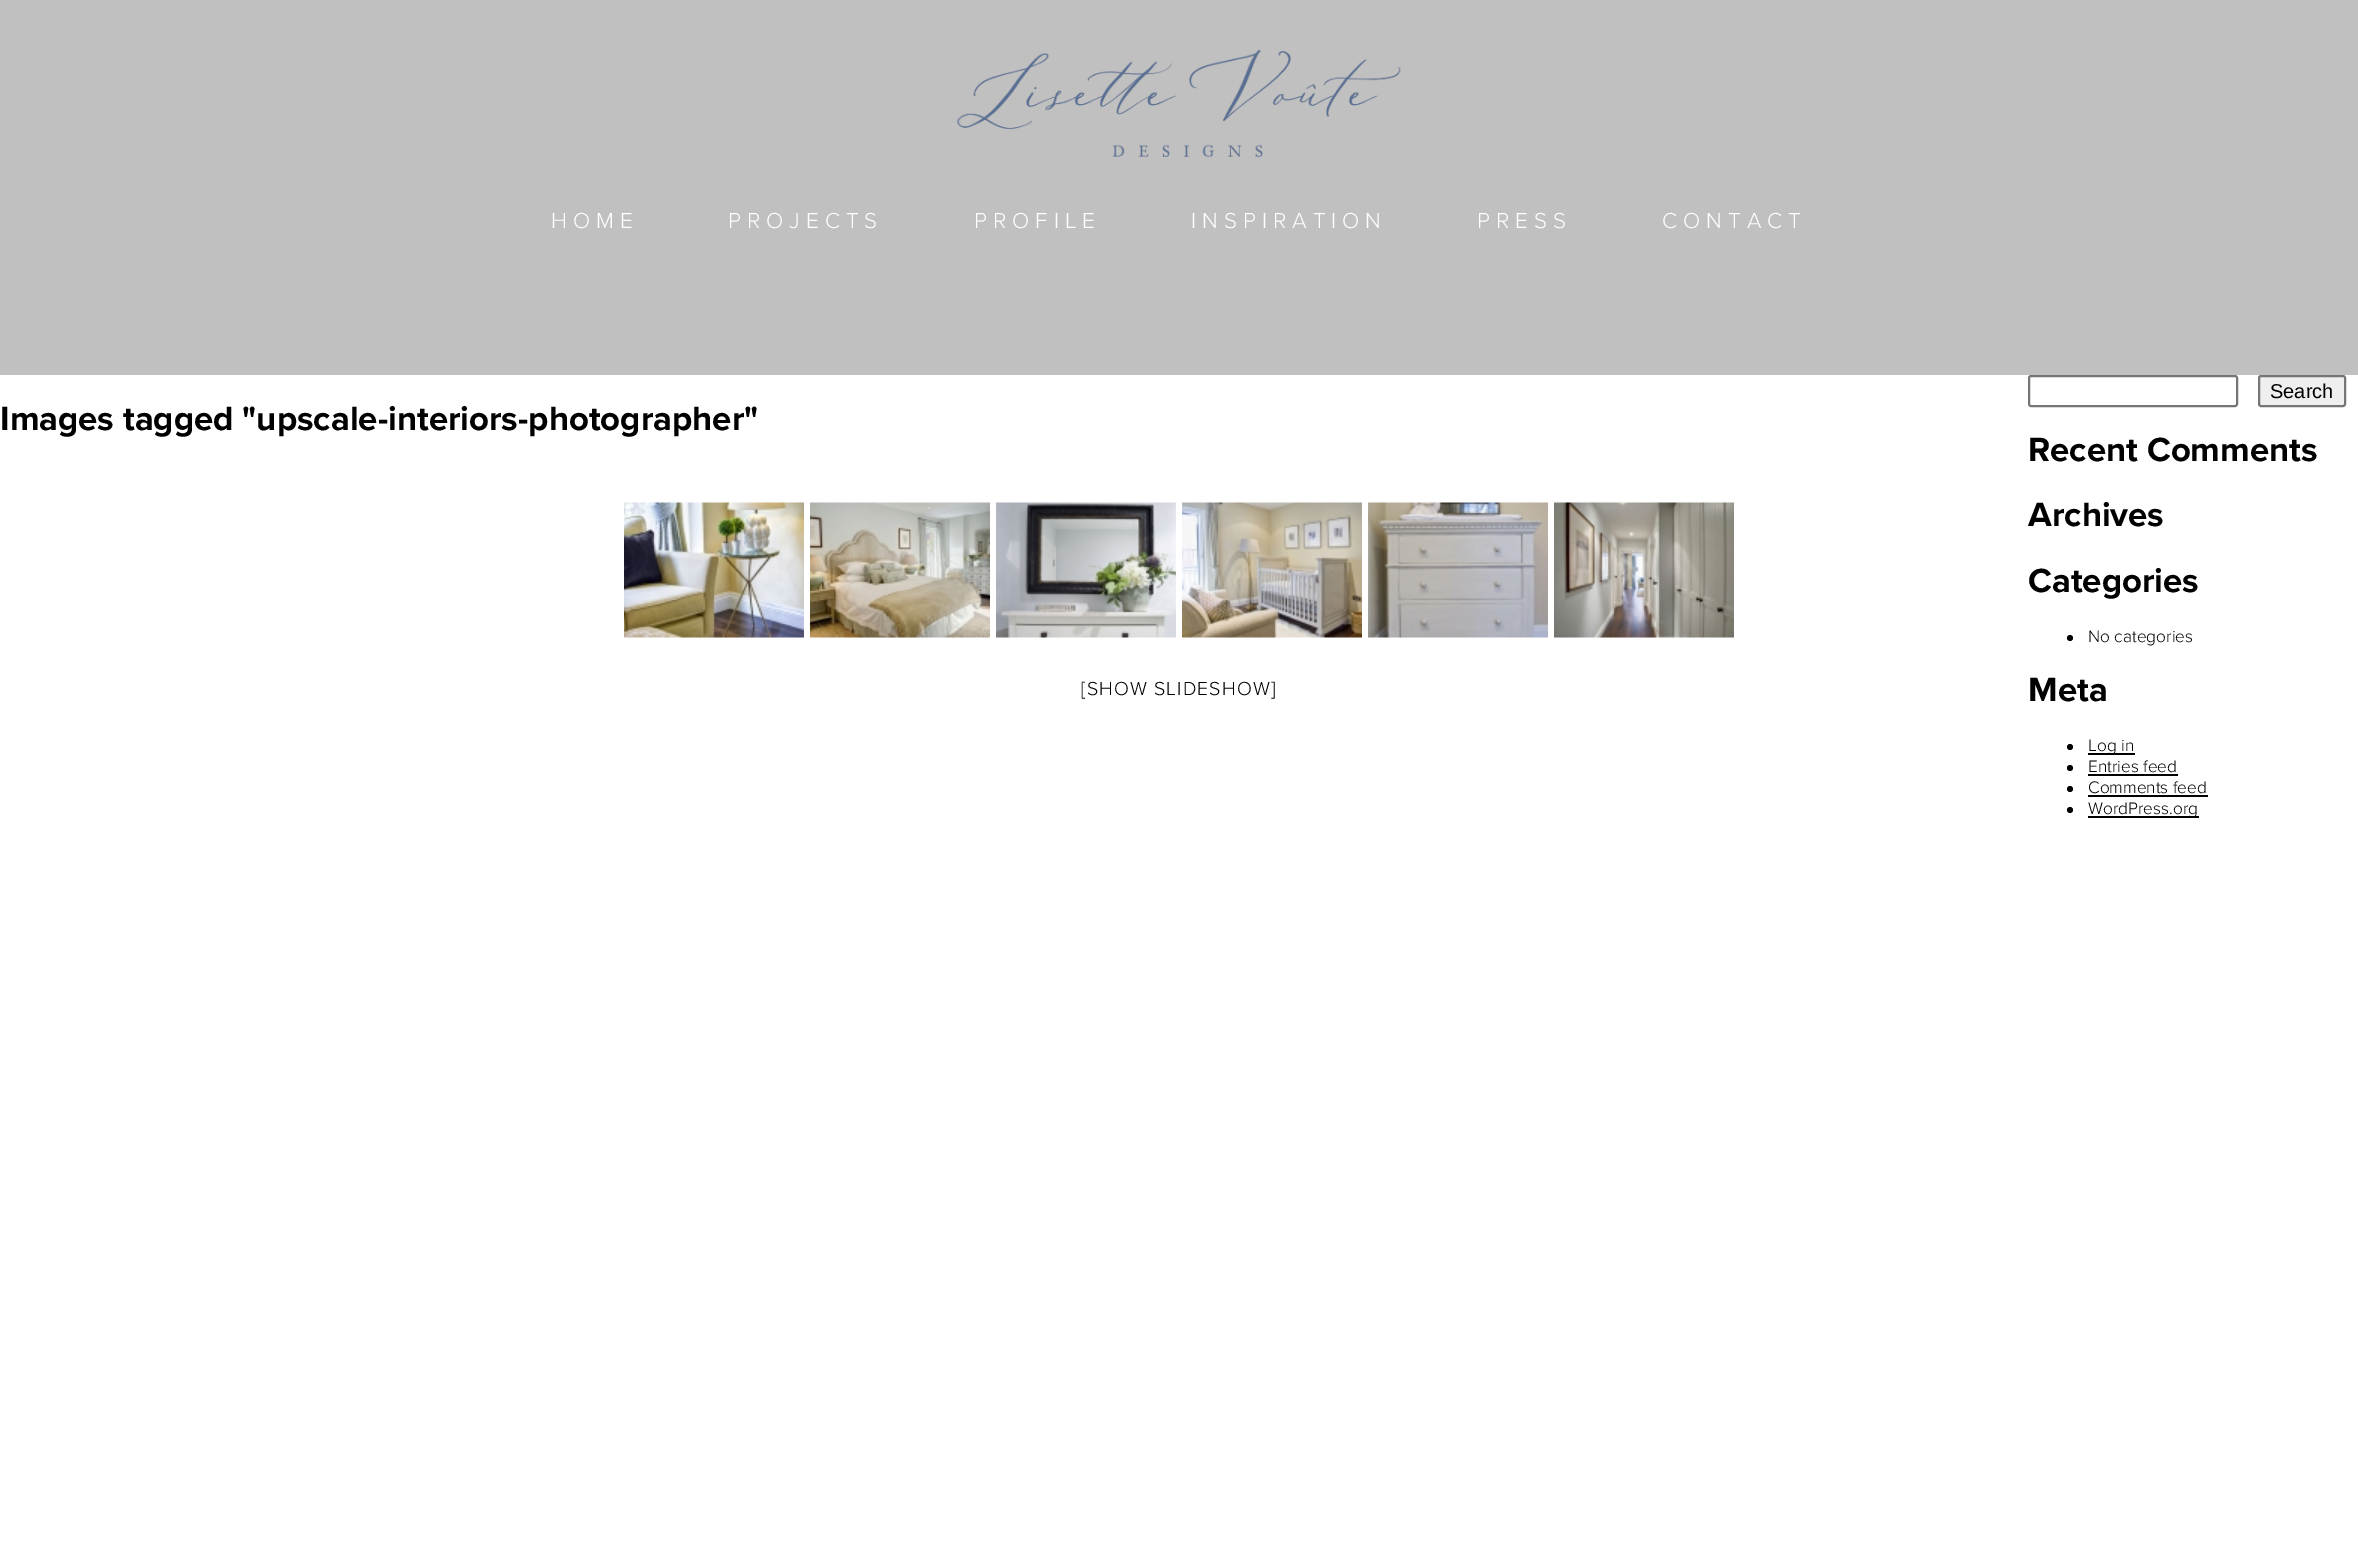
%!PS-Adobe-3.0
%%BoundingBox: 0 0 2358 1556
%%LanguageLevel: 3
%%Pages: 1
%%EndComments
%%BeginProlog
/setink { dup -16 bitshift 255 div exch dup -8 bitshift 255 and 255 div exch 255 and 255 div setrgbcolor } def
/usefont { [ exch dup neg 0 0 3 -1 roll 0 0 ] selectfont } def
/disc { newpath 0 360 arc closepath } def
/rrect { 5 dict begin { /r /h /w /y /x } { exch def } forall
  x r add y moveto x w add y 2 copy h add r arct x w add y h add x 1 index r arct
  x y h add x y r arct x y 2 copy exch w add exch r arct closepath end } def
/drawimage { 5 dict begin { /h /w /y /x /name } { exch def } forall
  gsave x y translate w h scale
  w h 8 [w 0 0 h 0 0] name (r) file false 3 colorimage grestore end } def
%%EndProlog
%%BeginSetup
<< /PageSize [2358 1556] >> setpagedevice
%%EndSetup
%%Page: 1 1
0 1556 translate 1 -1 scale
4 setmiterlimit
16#FFFFFF setink
0 0 2358 1556 rectfill
16#C0C0C0 setink
0 0 2358 375 rectfill
(img1.raw) 956 49 445 108 drawimage
/ProximaNova-Light 22.5 usefont
16#FFFFFF setink
551 228 moveto 6 0 (HOME) ashow
728 228 moveto 6 0 (PROJECTS) ashow
974 228 moveto 6 0 (PROFILE) ashow
1191 228 moveto 6 0 (INSPIRATION) ashow
1477 228 moveto 6 0 (PRESS) ashow
1662 228 moveto 6 0 (CONTACT) ashow
/ProximaNova-Bold 34.7 usefont
16#000000 setink
0 430 moveto (Images tagged "upscale-interiors-photographer") show
(img2.raw) 624 502 180 136 drawimage
(img3.raw) 810 502 180 136 drawimage
(img4.raw) 996 502 180 136 drawimage
(img5.raw) 1182 502 180 136 drawimage
(img6.raw) 1368 502 180 136 drawimage
(img7.raw) 1554 502 180 136 drawimage
/ProximaNova-Light 19.5 usefont
1081 695 moveto 1.1 0 ([SHOW SLIDESHOW]) ashow
16#767676 setink
2 setlinewidth
2029 376 208 30 2 rrect stroke
16#EFEFEF setink
2259 376 86 30 2 rrect gsave fill grestore
16#767676 setink
stroke
/LiberationSans-Regular 20 usefont
16#000000 setink
2270 398 moveto (Search) show
/ProximaNova-Bold 34.7 usefont
[
    [(Recent Comments) 2028 461]
    [(Archives) 2028 526]
    [(Categories) 2028 592]
] { aload pop moveto show } forall
2070 638 3 disc fill
/ProximaNova-Light 17.25 usefont
2088 642 moveto (No categories) show
/ProximaNova-Bold 34.7 usefont
2028 701 moveto (Meta) show
2070 747 3 disc fill
2088 753 47 2 rectfill
/ProximaNova-Light 17.25 usefont
2088 751 moveto (Log in) show
2070 768 3 disc fill
2088 772 moveto (Entries feed) show
2088 774 90 2 rectfill
2070 789 3 disc fill
2088 793 moveto (Comments feed) show
2088 795 120 2 rectfill
2070 810 3 disc fill
2088 816 111 2 rectfill
2088 814 moveto (WordPress.org) show
showpage
%%EOF
